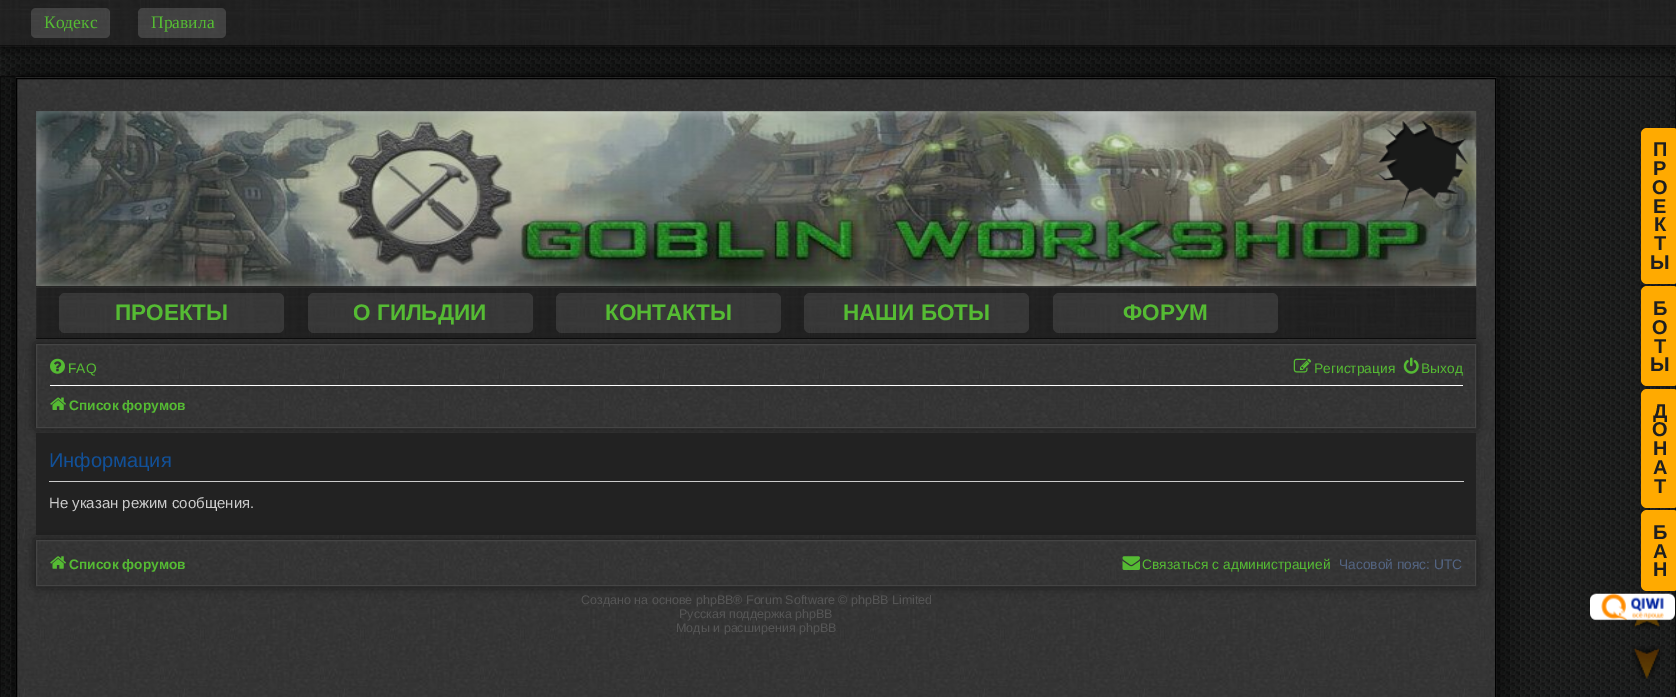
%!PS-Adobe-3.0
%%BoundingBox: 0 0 1676 697
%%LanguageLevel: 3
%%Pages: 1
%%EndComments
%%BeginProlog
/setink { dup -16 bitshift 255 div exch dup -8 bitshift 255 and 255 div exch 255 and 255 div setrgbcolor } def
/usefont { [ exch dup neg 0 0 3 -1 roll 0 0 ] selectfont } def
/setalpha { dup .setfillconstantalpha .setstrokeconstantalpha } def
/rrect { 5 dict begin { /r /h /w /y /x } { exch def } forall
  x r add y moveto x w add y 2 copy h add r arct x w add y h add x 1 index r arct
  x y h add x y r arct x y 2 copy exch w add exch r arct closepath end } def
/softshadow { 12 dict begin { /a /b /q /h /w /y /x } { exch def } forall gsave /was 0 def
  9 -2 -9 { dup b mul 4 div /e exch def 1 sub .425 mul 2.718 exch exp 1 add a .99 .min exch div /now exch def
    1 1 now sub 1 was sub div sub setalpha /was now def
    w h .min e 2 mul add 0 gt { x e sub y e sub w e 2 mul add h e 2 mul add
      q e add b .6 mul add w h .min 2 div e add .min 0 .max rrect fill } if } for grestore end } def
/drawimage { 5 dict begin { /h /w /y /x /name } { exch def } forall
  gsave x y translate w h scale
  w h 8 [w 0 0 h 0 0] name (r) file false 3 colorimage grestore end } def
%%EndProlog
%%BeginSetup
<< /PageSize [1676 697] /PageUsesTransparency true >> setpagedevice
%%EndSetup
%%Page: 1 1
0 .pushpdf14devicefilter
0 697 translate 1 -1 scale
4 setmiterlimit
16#FFFFFF setink
0 0 1676 697 rectfill
(img1.raw) 0 46 1676 651 drawimage
16#000000 setink
0 0 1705 46 0 9.5 1 softshadow
0.5 setalpha
0.5 76.5 1675 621 rectstroke
1 setalpha
16 78 1480 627 0 19 1 softshadow
(img2.raw) 0 0 1676 47 drawimage
0.5 setalpha
0 45 1676 1 rectfill
0.15 setalpha
16#FFFFFF setink
31 8 79 30 5 rrect fill
/LiberationSerif-Regular 17.5 usefont
1 setalpha
16#55BB33 setink
44 28 moveto (Кодекс) show
0.15 setalpha
16#FFFFFF setink
138 8 88 30 5 rrect fill
1 setalpha
16#55BB33 setink
151 28 moveto (Правила) show
(img3.raw) 16 77 1481 620 drawimage
16#000000 setink
16.5 78.5 1479 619 rectstroke
0.15 setalpha
16#FFFFFF setink
36 111 1440 175 rectfill
0.7 setalpha
16#000000 setink
36 286 1440 1 rectfill
1 setalpha
(img4.raw) 36 111 1441 176 drawimage
(img5.raw) 1377 119 92 92 drawimage
(img6.raw) 36 287 1441 52 drawimage
0.7 setalpha
36 338 1440 1 rectfill
gsave
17 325 moveto 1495 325 lineto 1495 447 lineto 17 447 lineto closepath 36 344 moveto 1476 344 lineto 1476 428 lineto 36 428 lineto closepath eoclip newpath
1 setalpha
16#151515 setink
36 344 1440 84 0 6 1 softshadow
grestore
0.1 setalpha
16#FFFFFF setink
59 293 225 40 6 rrect fill
/LiberationSans-Bold 22.5 usefont
1 setalpha
16#55BB33 setink
115 320 moveto (ПРОЕКТЫ) show
0.1 setalpha
16#FFFFFF setink
308 293 225 40 6 rrect fill
1 setalpha
16#55BB33 setink
353 320 moveto (О ГИЛЬДИИ) show
0.1 setalpha
16#FFFFFF setink
556 293 225 40 6 rrect fill
1 setalpha
16#55BB33 setink
605 320 moveto (КОНТАКТЫ) show
0.1 setalpha
16#FFFFFF setink
804 293 225 40 6 rrect fill
1 setalpha
16#55BB33 setink
843 320 moveto (НАШИ БОТЫ) show
0.1 setalpha
16#FFFFFF setink
1053 293 225 40 6 rrect fill
1 setalpha
16#55BB33 setink
1123 320 moveto (ФОРУМ) show
16#444444 setink
36.5 344.5 1439 83 rectstroke
(img7.raw) 50 358 15 16 drawimage
/LiberationSans-Regular 13.75 usefont
16#55BB33 setink
68 373 moveto (FAQ) show
(img8.raw) 1293 358 19 15 drawimage
1314 373 moveto (Регистрация) show
(img9.raw) 1403 357 16 17 drawimage
1421 373 moveto (Выход) show
16#FFFFFF setink
50 385 1413 1 rectfill
(img10.raw) 50 397 16 13 drawimage
/LiberationSans-Bold 13.75 usefont
16#55BB33 setink
69 410 moveto (Список форумов) show
16#222222 setink
36 433 1440 102 rectfill
16#CCCCCC setink
49 481 1415 1 rectfill
/LiberationSans-Regular 20 usefont
16#115098 setink
49 467 moveto (Информация) show
/LiberationSans-Regular 15 usefont
16#CCCCCC setink
49 508 moveto (Не указан режим сообщения.) show
gsave
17 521 moveto 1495 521 lineto 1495 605 lineto 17 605 lineto closepath 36 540 moveto 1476 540 lineto 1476 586 lineto 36 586 lineto closepath eoclip newpath
16#151515 setink
36 540 1440 46 0 6 1 softshadow
grestore
16#444444 setink
36.5 540.5 1439 45 rectstroke
(img11.raw) 50 556 16 13 drawimage
/LiberationSans-Bold 13.75 usefont
16#55BB33 setink
69 569 moveto (Список форумов) show
(img12.raw) 1122 556 18 14 drawimage
/LiberationSans-Regular 13.75 usefont
1142 569 moveto (Связаться с администрацией) show
16#536482 setink
1339 569 moveto (Часовой пояс: UTC) show
/LiberationSans-Regular 12.5 usefont
16#555555 setink
[
    [(Создано на основе phpBB® Forum Software © phpBB Limited) 581 604]
    [(Русская поддержка phpBB) 679 618]
    [(Моды и расширения phpBB) 676 632]
] { aload pop moveto show } forall
(img13.raw) 1632 619 30 10 drawimage
(img14.raw) 1632 646 30 33 drawimage
16#FFAA00 setink
1641 128 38 156 6 rrect fill
/LiberationSans-Bold 20 usefont
16#1F1F1F setink
[
    [(П) 1653 156]
    [(Р) 1653 175]
    [(О) 1652 194]
    [(Е) 1653 213]
    [(К) 1654 231]
    [(Т) 1654 250]
    [(Ы) 1650 269]
] { aload pop moveto show } forall
16#FFAA00 setink
1641 286 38 100 6 rrect fill
16#1F1F1F setink
[
    [(Б) 1653 315]
    [(О) 1652 334]
    [(Т) 1654 353]
    [(Ы) 1650 371]
] { aload pop moveto show } forall
16#FFAA00 setink
1641 389 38 119 6 rrect fill
16#1F1F1F setink
[
    [(Д) 1653 418]
    [(О) 1652 436]
    [(Н) 1653 455]
    [(А) 1653 474]
    [(Т) 1654 493]
] { aload pop moveto show } forall
16#FFAA00 setink
1641 510 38 81 6 rrect fill
16#1F1F1F setink
[
    [(Б) 1653 539]
    [(А) 1653 558]
    [(Н) 1653 576]
] { aload pop moveto show } forall
(img15.raw) 1590 593 85 28 drawimage
.poppdf14devicefilter showpage
%%EOF
